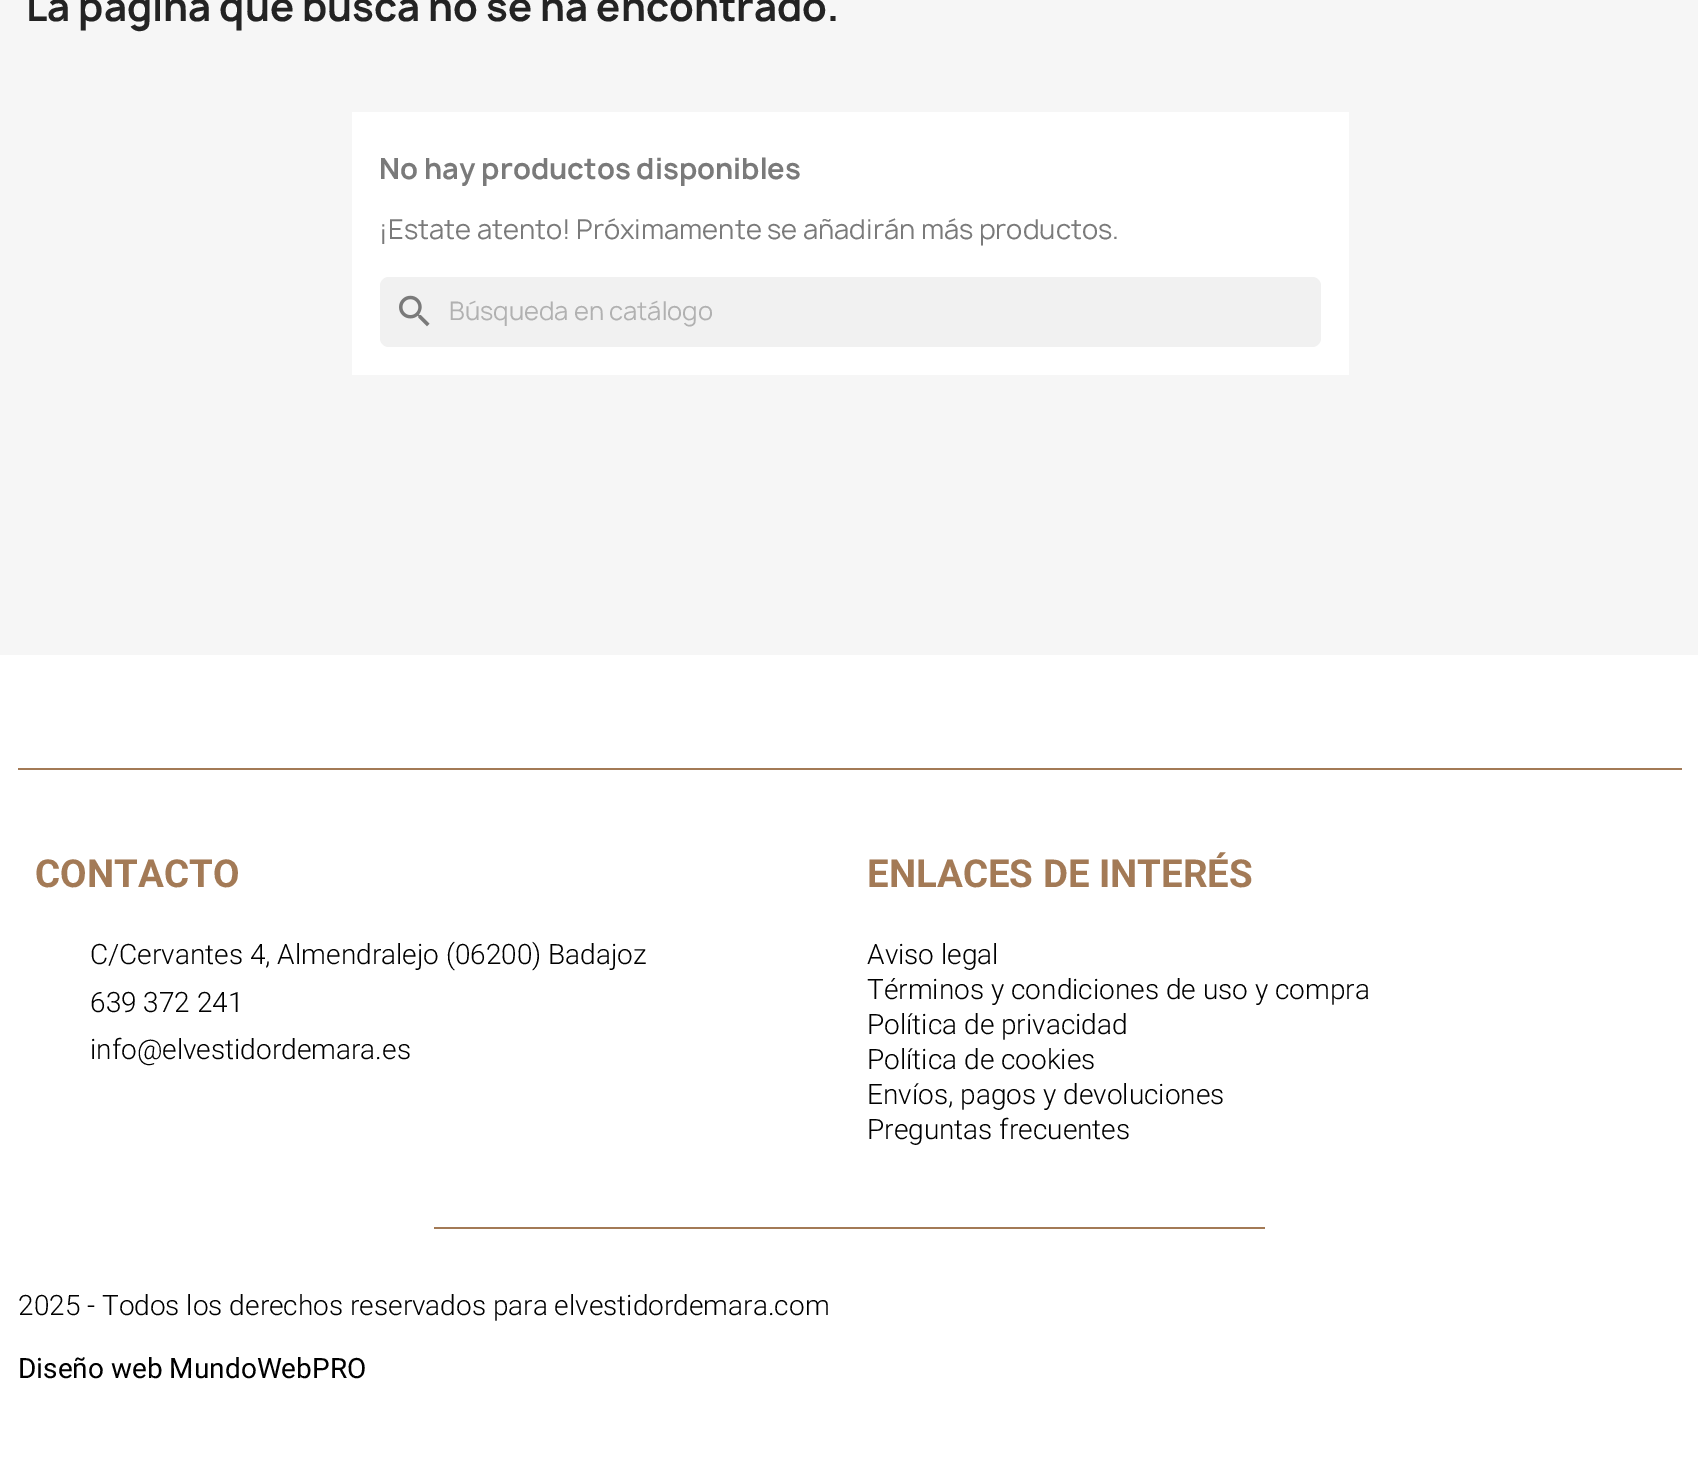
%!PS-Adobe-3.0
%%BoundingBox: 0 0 1698 1475
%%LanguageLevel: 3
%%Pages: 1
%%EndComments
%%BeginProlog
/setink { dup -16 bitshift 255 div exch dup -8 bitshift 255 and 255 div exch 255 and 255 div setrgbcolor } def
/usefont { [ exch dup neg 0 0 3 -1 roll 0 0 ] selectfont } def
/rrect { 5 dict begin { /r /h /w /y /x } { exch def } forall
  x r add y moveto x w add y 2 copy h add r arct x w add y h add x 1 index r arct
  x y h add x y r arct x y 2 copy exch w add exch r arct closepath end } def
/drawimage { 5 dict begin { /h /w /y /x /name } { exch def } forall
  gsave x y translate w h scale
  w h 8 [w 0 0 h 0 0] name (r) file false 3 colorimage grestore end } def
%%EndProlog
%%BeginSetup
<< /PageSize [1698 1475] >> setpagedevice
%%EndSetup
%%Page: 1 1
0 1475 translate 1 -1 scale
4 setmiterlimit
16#FFFFFF setink
0 0 1698 1475 rectfill
16#F6F6F6 setink
0 0 1698 655 rectfill
/Manrope-Bold 38.5 usefont
16#232323 setink
26 21 moveto (La página que busca no se ha encontrado.) show
16#FFFFFF setink
352 112 997 263 rectfill
/Manrope-Bold 28 usefont
16#7A7A7A setink
379 179 moveto (No hay productos disponibles) show
/Manrope-Regular 26.25 usefont
379 239 moveto (¡Estate atento! Próximamente se añadirán más productos.) show
16#F1F1F1 setink
380 277 941 70 9 rrect fill
(img1.raw) 399 295 31 32 drawimage
/Manrope-Regular 24.5 usefont
16#B1B1B1 setink
449 320 moveto (Búsqueda en catálogo) show
16#A37A56 setink
18 768 1664 2 rectfill
/Roboto-Bold 38.5 usefont
35 887 moveto (CONTACTO) show
/Roboto-Light 28 usefont
16#000000 setink
[
    [(C/Cervantes 4, Almendralejo \(06200\) Badajoz) 90 964]
    [(639 372 241) 90 1012]
    [(info@elvestidordemara.es) 90 1059]
] { aload pop moveto show } forall
/Roboto-Bold 38.5 usefont
16#A37A56 setink
867 887 moveto (ENLACES DE INTERÉS) show
/Roboto-Light 28 usefont
16#000000 setink
[
    [(Aviso legal) 867 964]
    [(Términos y condiciones de uso y compra) 867 999]
    [(Política de privacidad) 867 1034]
    [(Política de cookies) 867 1069]
    [(Envíos, pagos y devoluciones) 867 1104]
    [(Preguntas frecuentes) 867 1139]
] { aload pop moveto show } forall
16#A37A56 setink
434 1227 831 2 rectfill
16#000000 setink
18 1315 moveto (2025 - Todos los derechos reservados para elvestidordemara.com) show
/Roboto-Regular 28 usefont
18 1378 moveto (Diseño web MundoWebPRO) show
showpage
%%EOF
